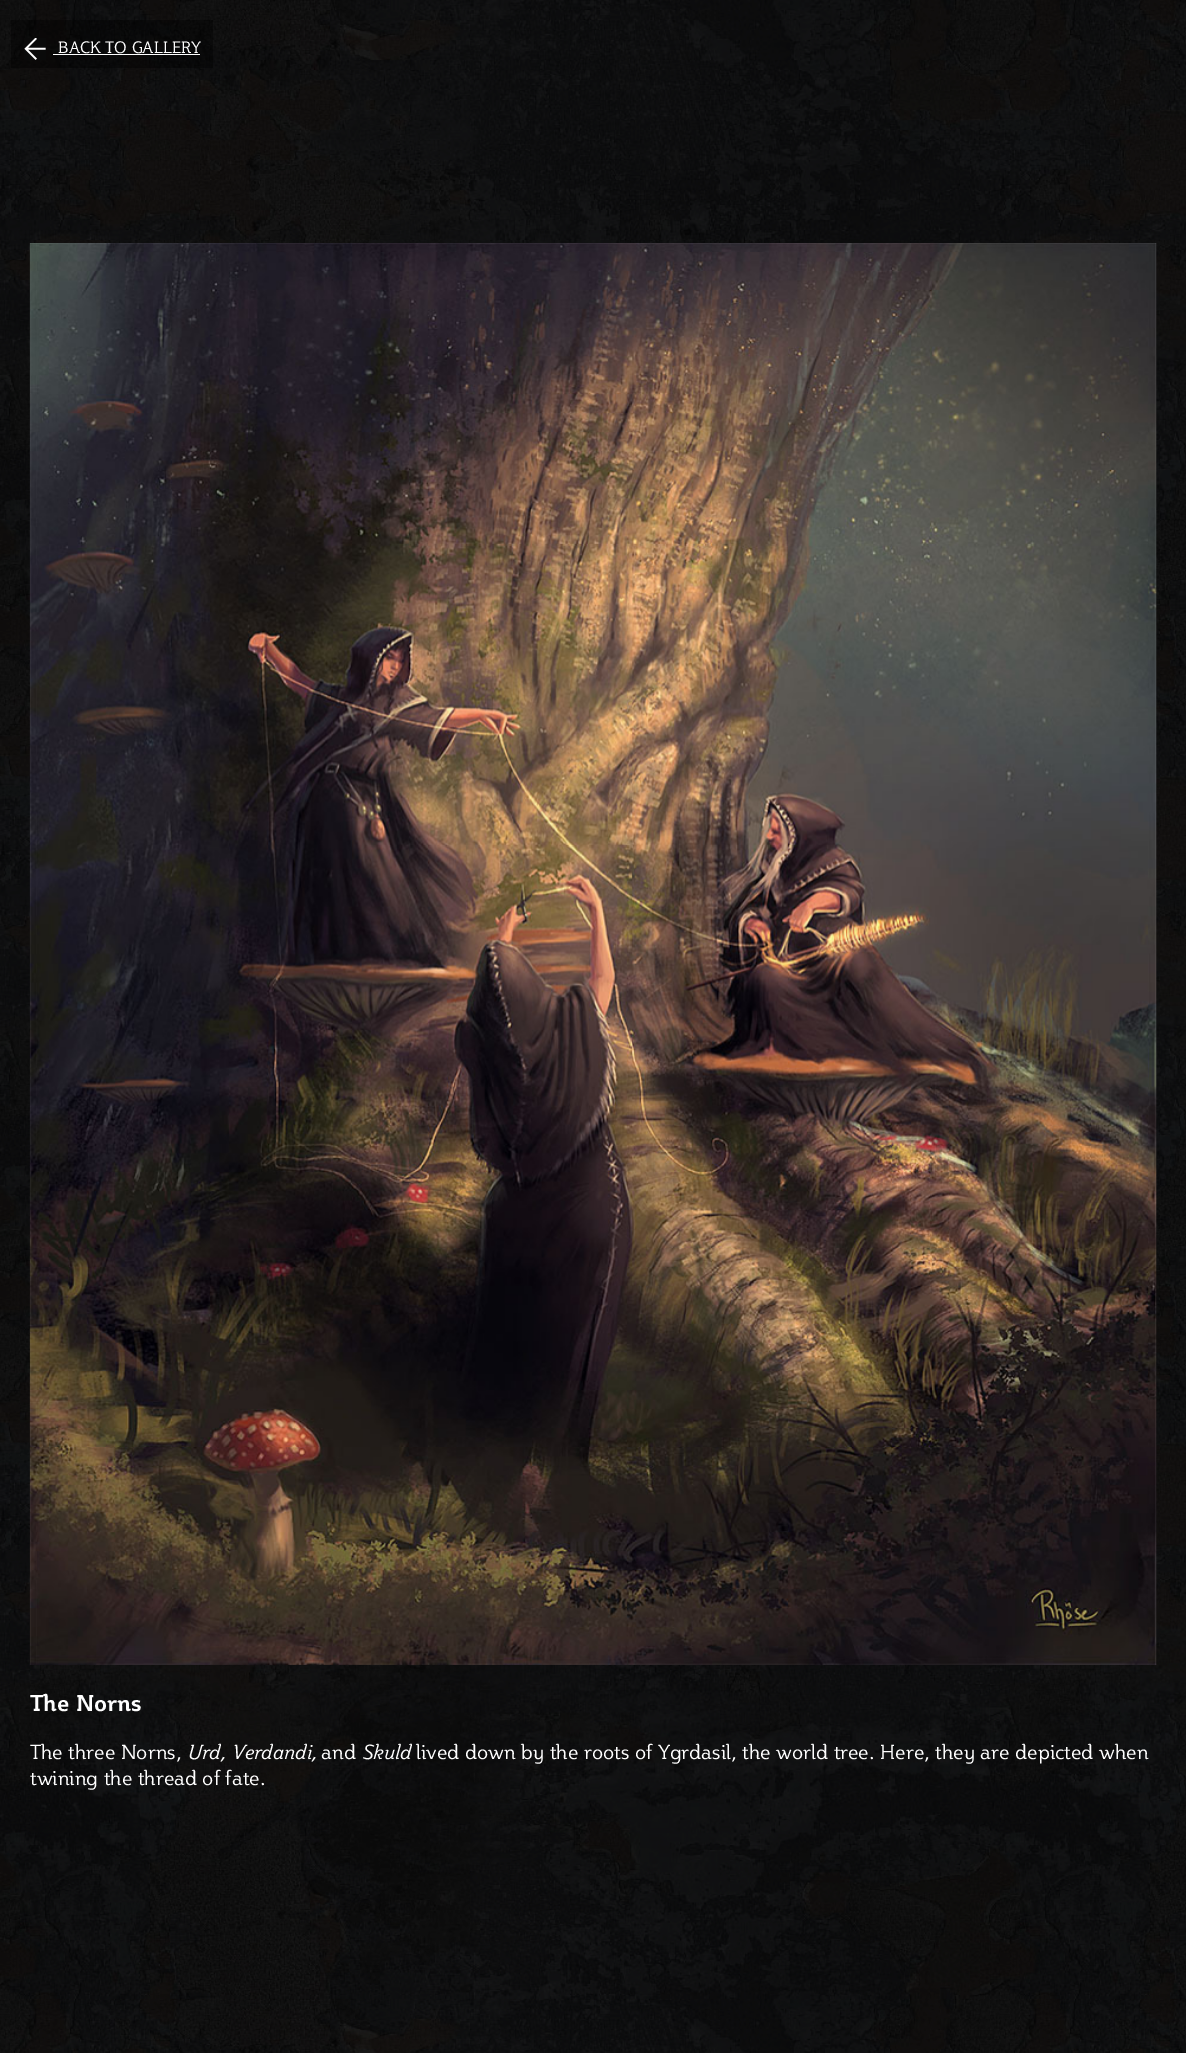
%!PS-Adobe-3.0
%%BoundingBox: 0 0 1186 2053
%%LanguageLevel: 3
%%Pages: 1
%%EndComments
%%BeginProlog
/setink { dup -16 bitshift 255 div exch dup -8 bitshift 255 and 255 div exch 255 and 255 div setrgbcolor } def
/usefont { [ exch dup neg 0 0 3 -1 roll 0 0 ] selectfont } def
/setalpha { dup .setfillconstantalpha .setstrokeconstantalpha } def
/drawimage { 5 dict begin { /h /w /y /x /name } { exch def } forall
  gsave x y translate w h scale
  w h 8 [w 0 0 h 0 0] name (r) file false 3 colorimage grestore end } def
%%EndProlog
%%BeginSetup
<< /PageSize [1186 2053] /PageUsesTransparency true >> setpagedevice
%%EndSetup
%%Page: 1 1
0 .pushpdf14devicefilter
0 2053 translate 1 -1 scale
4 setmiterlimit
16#FFFFFF setink
0 0 1186 2053 rectfill
(img1.raw) 0 0 1186 2053 drawimage
0.4 setalpha
16#000000 setink
11 20 202 48 rectfill
1 setalpha
16#0A0A0A setink
24 38 20 22 rectfill
(img2.raw) 24 38 22 22 drawimage
/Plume-Regular 16.25 usefont
16#FFFFFF setink
58 53 moveto (BACK TO GALLERY) show
53 54 147 1 rectfill
(img3.raw) 29 243 1128 1422 drawimage
/Plume-Bold 22.5 usefont
30 1711 moveto (The Norns) show
/Plume-Regular 20 usefont
30 1759 moveto (The three Norns,) show
/Plume-Italic 20 usefont
187 1759 moveto (Urd, Verdandi,) show
/Plume-Regular 20 usefont
321 1759 moveto (and) show
/Plume-Italic 20 usefont
362 1759 moveto (Skuld) show
/Plume-Regular 20 usefont
416 1759 moveto (lived down by the roots of Ygrdasil, the world tree. Here, they are depicted when) show
30 1785 moveto (twining the thread of fate.) show
.poppdf14devicefilter showpage
%%EOF
